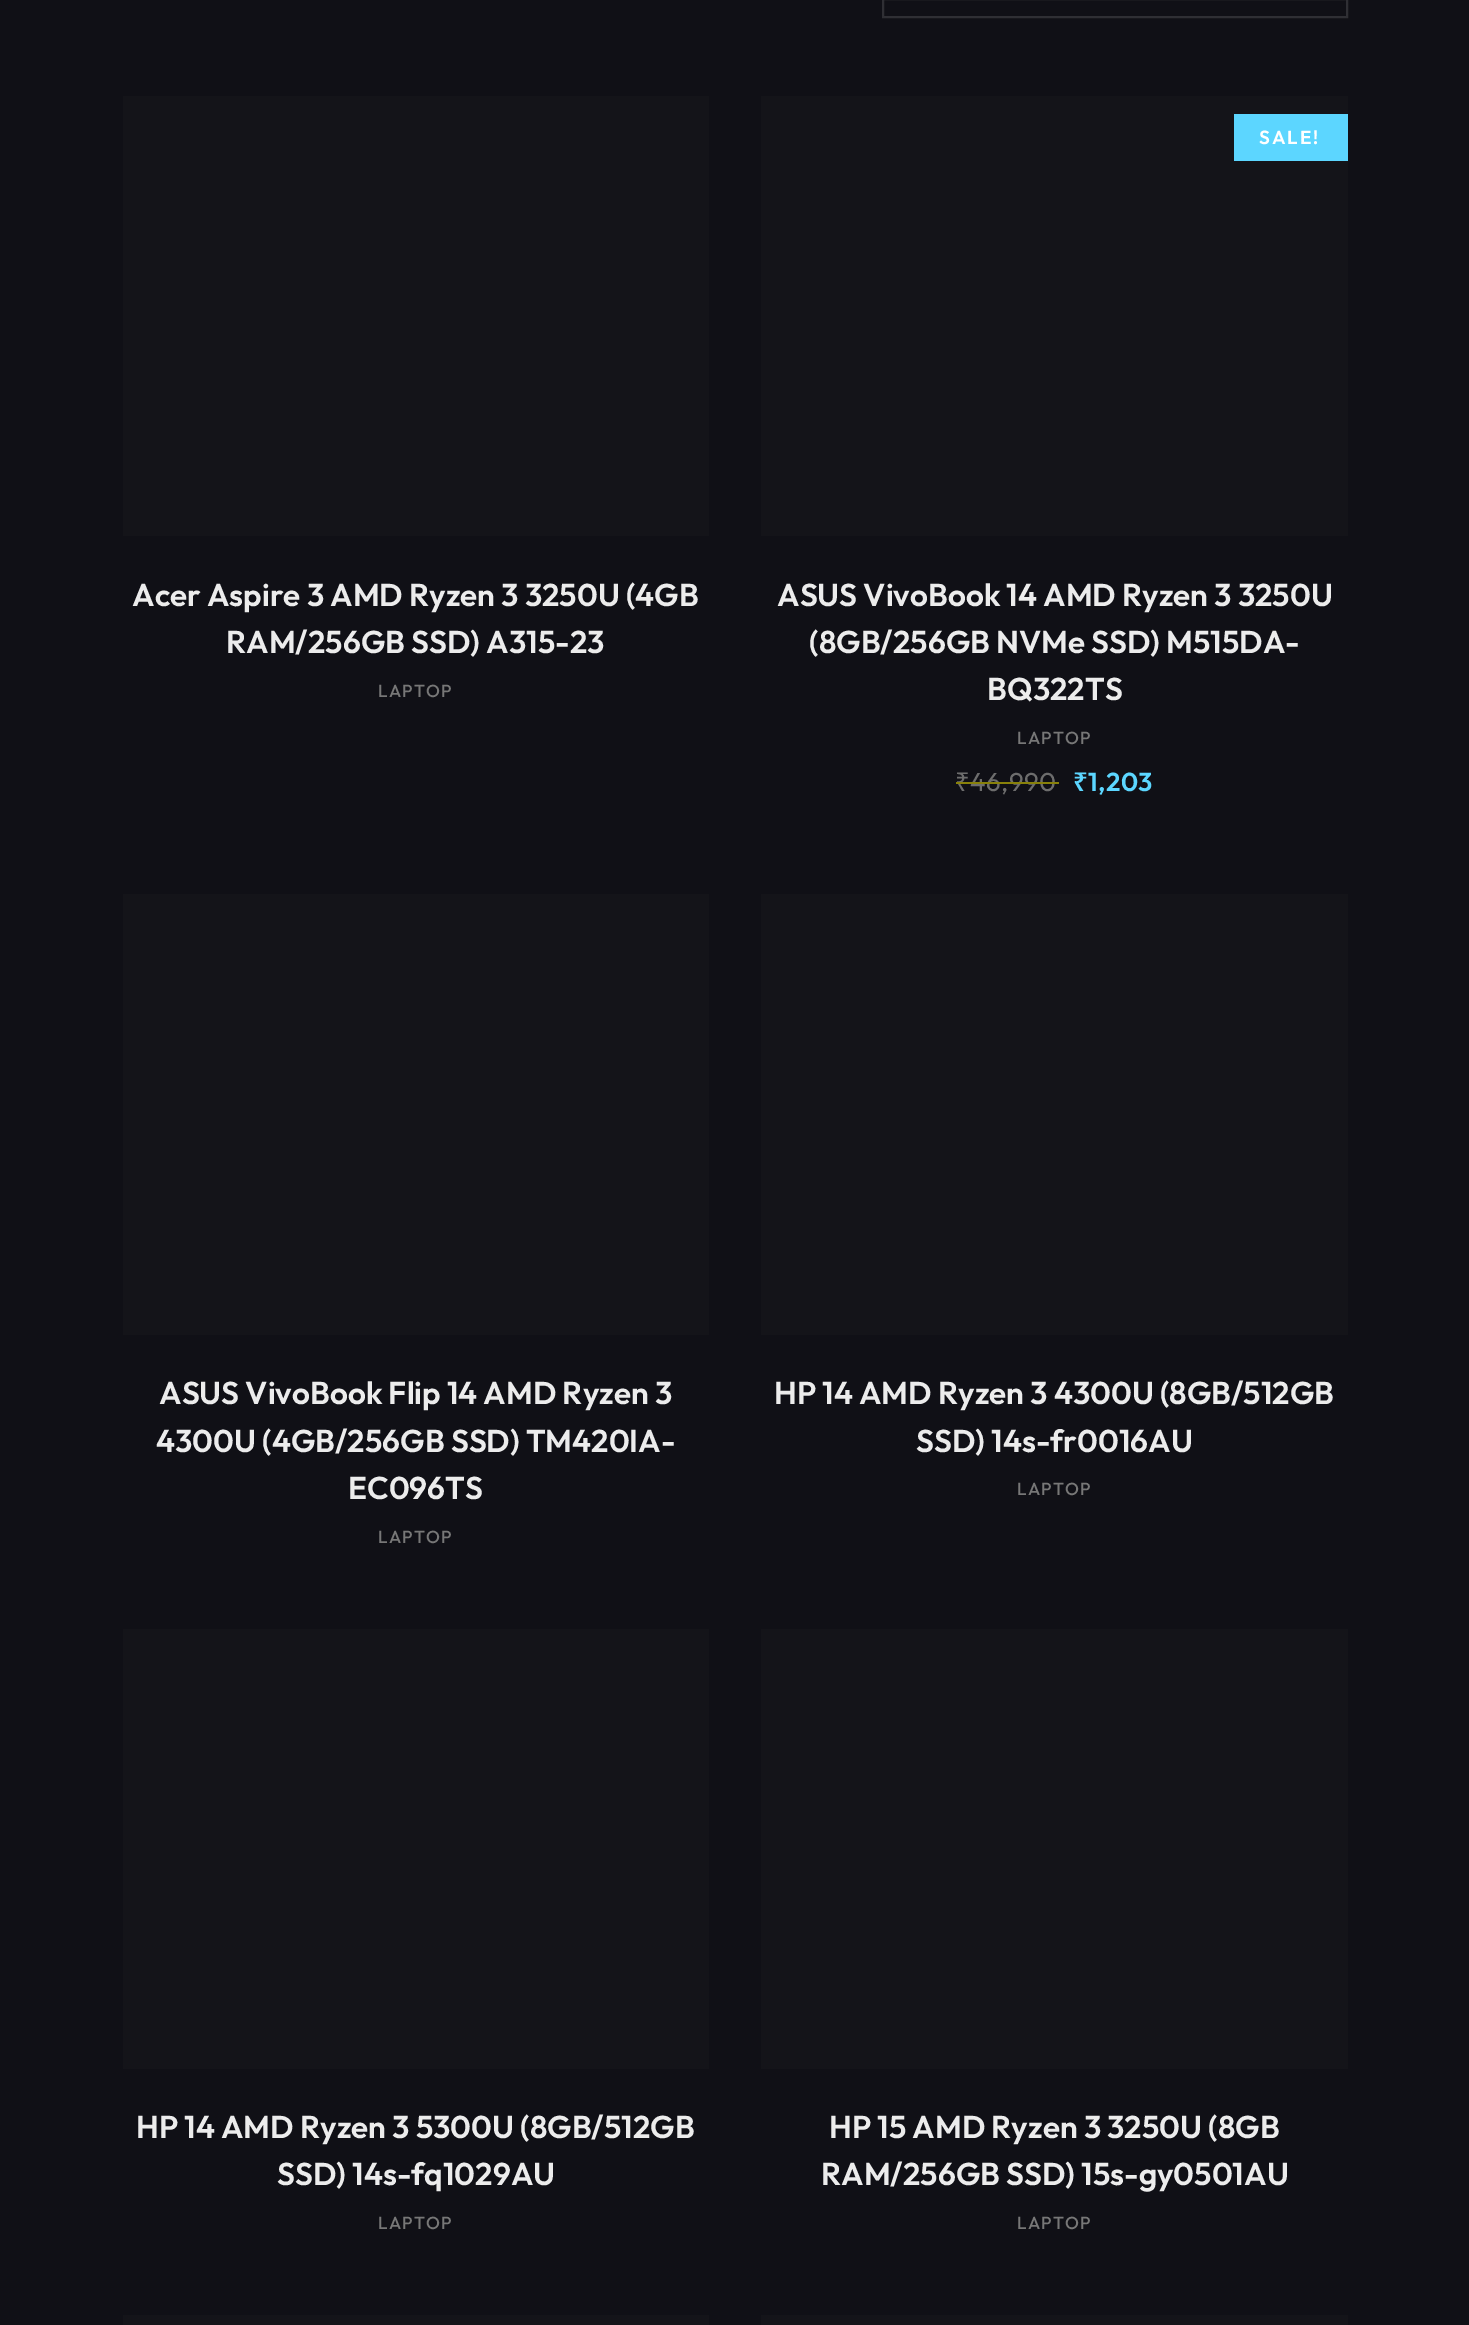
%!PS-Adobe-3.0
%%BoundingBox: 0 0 1469 2325
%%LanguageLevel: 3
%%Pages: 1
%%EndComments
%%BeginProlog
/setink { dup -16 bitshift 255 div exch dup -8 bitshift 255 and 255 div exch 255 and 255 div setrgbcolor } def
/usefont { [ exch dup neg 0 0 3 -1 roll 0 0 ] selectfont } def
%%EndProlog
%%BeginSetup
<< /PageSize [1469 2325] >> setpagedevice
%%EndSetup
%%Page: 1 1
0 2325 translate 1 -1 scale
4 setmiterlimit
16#101016 setink
0 0 1469 2325 rectfill
16#2F2F34 setink
2 setlinewidth
883 -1 464 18 rectstroke
16#141419 setink
123 96 586 440 rectfill
/Outfit-SemiBold 31.5 usefont
16#ECECEC setink
132 606 moveto (Acer Aspire 3 AMD Ryzen 3 3250U \(4GB) show
226 653 moveto (RAM/256GB SSD\) A315-23) show
/Outfit-Medium 17.5 usefont
16#777777 setink
378 697 moveto 1.25 0 (LAPTOP) ashow
16#141419 setink
761 96 587 440 rectfill
16#5CD6FF setink
1234 114 114 47 rectfill
/Outfit-SemiBold 19 usefont
16#FFFFFF setink
1259 144 moveto 2 0 (SALE!) ashow
/Outfit-SemiBold 31.5 usefont
16#ECECEC setink
[
    [(ASUS VivoBook 14 AMD Ryzen 3 3250U) 777 606]
    [(\(8GB/256GB NVMe SSD\) M515DA-) 809 653]
    [(BQ322TS) 987 700]
] { aload pop moveto show } forall
/Outfit-Medium 17.5 usefont
16#777777 setink
1017 744 moveto 1.25 0 (LAPTOP) ashow
/NotoSans-Regular 26 usefont
16#6D6D6D setink
955 791 moveto 0.5 0 (₹) ashow
/Outfit-Regular 26 usefont
970 791 moveto 0.5 0 (46,990) ashow
16#88810A setink
956 782 14 2 rectfill
970 782 89 2 rectfill
/NotoSans-SemiBold 26 usefont
16#5CD6FF setink
1073 791 moveto 0.5 0 (₹) ashow
/Outfit-SemiBold 26 usefont
1088 791 moveto 0.5 0 (1,203) ashow
16#141419 setink
123 894 586 441 rectfill
/Outfit-SemiBold 31.5 usefont
16#ECECEC setink
[
    [(ASUS VivoBook Flip 14 AMD Ryzen 3) 159 1404]
    [(4300U \(4GB/256GB SSD\) TM420IA-) 156 1452]
    [(EC096TS) 348 1499]
] { aload pop moveto show } forall
/Outfit-Medium 17.5 usefont
16#777777 setink
378 1543 moveto 1.25 0 (LAPTOP) ashow
16#141419 setink
761 894 587 441 rectfill
/Outfit-SemiBold 31.5 usefont
16#ECECEC setink
774 1404 moveto (HP 14 AMD Ryzen 3 4300U \(8GB/512GB) show
916 1452 moveto (SSD\) 14s-fr0016AU) show
/Outfit-Medium 17.5 usefont
16#777777 setink
1017 1495 moveto 1.25 0 (LAPTOP) ashow
16#141419 setink
123 1629 586 440 rectfill
/Outfit-SemiBold 31.5 usefont
16#ECECEC setink
136 2138 moveto (HP 14 AMD Ryzen 3 5300U \(8GB/512GB) show
277 2185 moveto (SSD\) 14s-fq1029AU) show
/Outfit-Medium 17.5 usefont
16#777777 setink
378 2229 moveto 1.25 0 (LAPTOP) ashow
16#141419 setink
761 1629 587 440 rectfill
/Outfit-SemiBold 31.5 usefont
16#ECECEC setink
829 2138 moveto (HP 15 AMD Ryzen 3 3250U \(8GB) show
821 2185 moveto (RAM/256GB SSD\) 15s-gy0501AU) show
/Outfit-Medium 17.5 usefont
16#777777 setink
1017 2229 moveto 1.25 0 (LAPTOP) ashow
16#141419 setink
123 2315 586 10 rectfill
761 2315 587 10 rectfill
showpage
%%EOF
